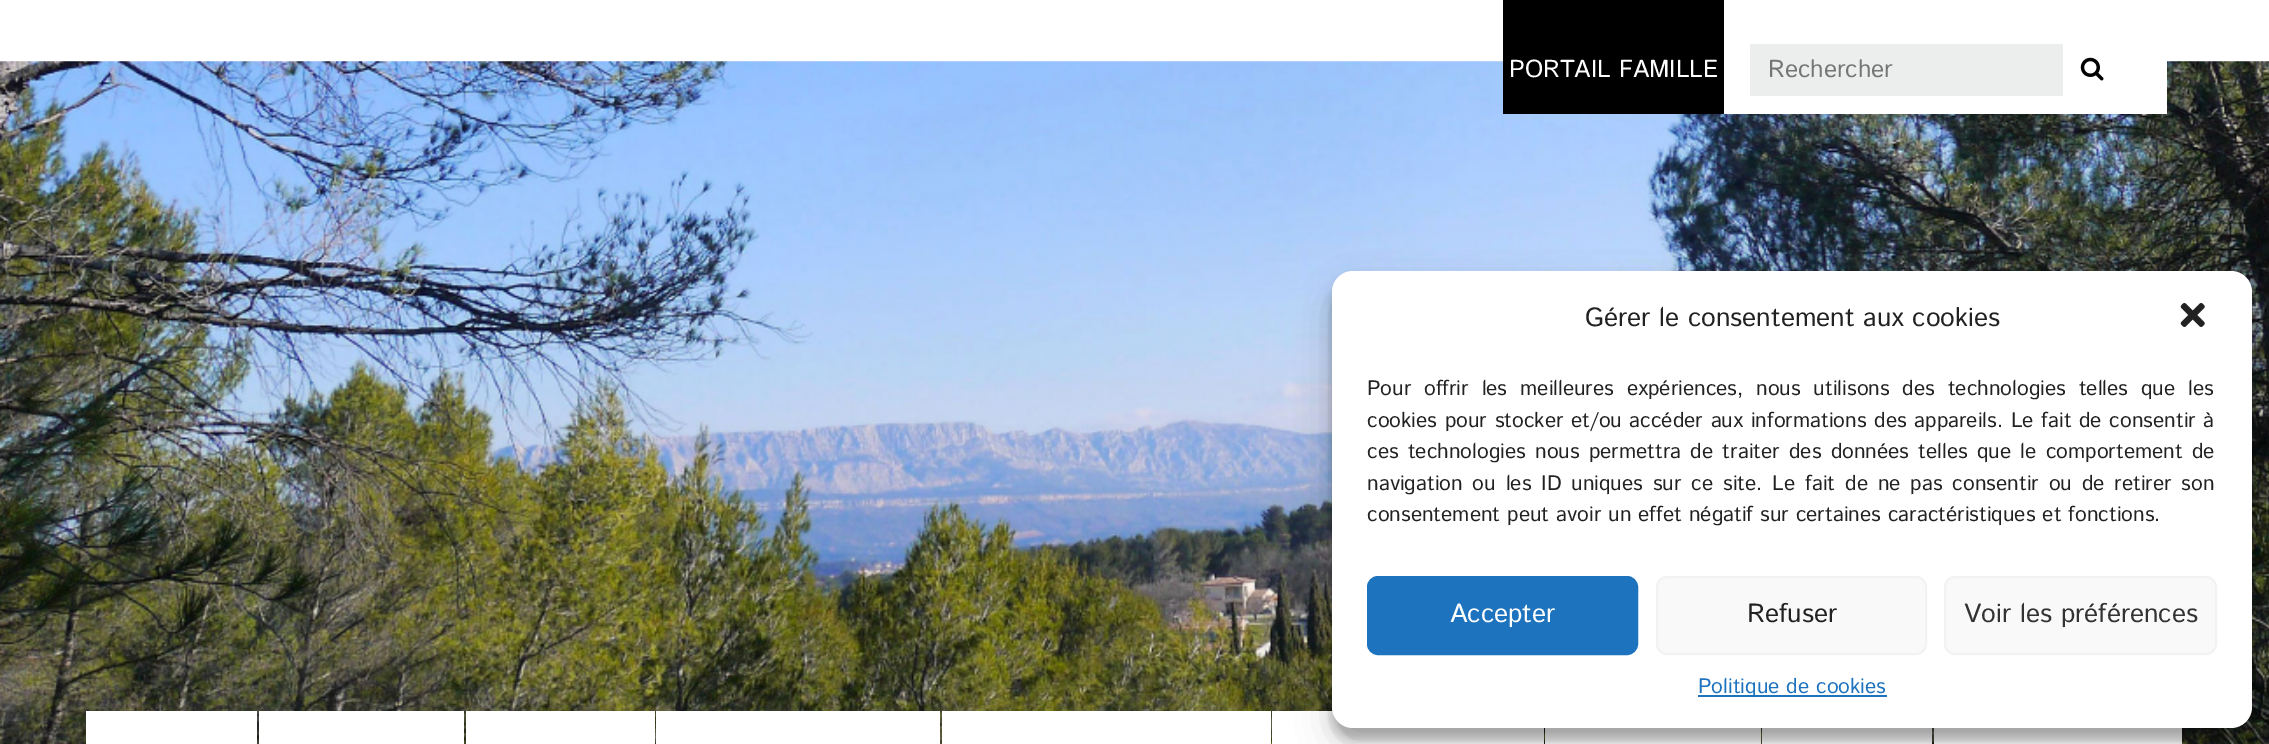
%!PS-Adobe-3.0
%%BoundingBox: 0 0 2269 744
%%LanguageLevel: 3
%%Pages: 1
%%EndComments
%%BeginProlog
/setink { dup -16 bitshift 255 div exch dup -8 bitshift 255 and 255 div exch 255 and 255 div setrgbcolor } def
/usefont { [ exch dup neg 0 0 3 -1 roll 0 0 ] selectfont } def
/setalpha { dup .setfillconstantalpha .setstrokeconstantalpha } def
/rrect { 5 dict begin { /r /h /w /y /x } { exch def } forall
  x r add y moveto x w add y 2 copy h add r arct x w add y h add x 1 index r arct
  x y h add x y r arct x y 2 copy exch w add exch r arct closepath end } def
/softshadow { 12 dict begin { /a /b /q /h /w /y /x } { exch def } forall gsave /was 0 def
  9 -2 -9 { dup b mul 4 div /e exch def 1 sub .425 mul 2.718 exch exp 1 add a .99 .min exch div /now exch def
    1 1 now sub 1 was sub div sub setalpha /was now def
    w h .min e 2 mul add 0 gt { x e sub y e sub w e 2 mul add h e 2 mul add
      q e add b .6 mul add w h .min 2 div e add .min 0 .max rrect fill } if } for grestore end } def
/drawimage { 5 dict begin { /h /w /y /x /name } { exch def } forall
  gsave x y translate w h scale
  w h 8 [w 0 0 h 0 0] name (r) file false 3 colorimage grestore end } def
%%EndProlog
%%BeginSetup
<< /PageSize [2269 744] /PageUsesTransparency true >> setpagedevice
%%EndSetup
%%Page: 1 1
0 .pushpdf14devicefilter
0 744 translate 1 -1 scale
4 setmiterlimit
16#FFFFFF setink
0 0 2269 744 rectfill
(img2.raw) 0 61 2269 683 drawimage
16#000000 setink
1503 0 221 114 rectfill
/IstokWeb-Regular 24.5 usefont
16#FFFFFF setink
1509 77 moveto (PORTAIL FAMILLE) show
1724 61 443 53 rectfill
16#ECEEEE setink
1750 44 313 52 rectfill
16#757575 setink
1768 77 moveto (Rechercher) show
(img1.raw) 2080 57 24 24 drawimage
[
    [86 711 171 33 16#FFFFFF]
    [259 711 205 33 16#FFFFFF]
    [466 711 189 33 16#FFFFFF]
    [656 711 284 33 16#FFFFFF]
    [942 711 329 33 16#FFFFFF]
    [1272 711 272 33 16#FFFFFF]
    [1545 728 216 16 16#FFFFFF]
    [1762 728 170 16 16#FFFFFF]
    [1934 728 248 16 16#FFFFFF]
] { aload pop setink rectfill } forall
16#000000 setink
1332 282 920 457 21 5 0.23 softshadow
1332 289 920 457 21 17.5 0.19 softshadow
16#FFFFFF setink
1332 271 920 457 21 rrect fill
/IstokWeb-Regular 26.25 usefont
16#222222 setink
1585 326 moveto (Gérer le consentement aux cookies) show
(img3.raw) 2180 303 25 24 drawimage
/IstokWeb-Regular 21 usefont
1367 395 moveto 5.9 0 32 (Pour offrir les meilleures expériences, nous utilisons des technologies telles que les) widthshow
1367 427 moveto 0.7 0 32 (cookies pour stocker et/ou accéder aux informations des appareils. Le fait de consentir à) widthshow
1367 458 moveto 2.25 0 32 (ces technologies nous permettra de traiter des données telles que le comportement de) widthshow
1367 490 moveto 2.9 0 32 (navigation ou les ID uniques sur ce site. Le fait de ne pas consentir ou de retirer son) widthshow
1367 521 moveto (consentement peut avoir un effet négatif sur certaines caractéristiques et fonctions.) show
16#1E73BE setink
1368 577 269 77 10 rrect gsave fill grestore
2 setlinewidth
stroke
/IstokWeb-Regular 26.25 usefont
16#FFFFFF setink
1450 622 moveto (Accepter) show
16#F9F9F9 setink
1657 577 269 77 10 rrect gsave fill grestore
16#F2F2F2 setink
stroke
16#222222 setink
1747 622 moveto (Refuser) show
16#F9F9F9 setink
1945 577 271 77 10 rrect gsave fill grestore
16#F2F2F2 setink
stroke
16#333333 setink
1964 622 moveto (Voir les préférences) show
16#1E73BE setink
1698 695 189 2 rectfill
/IstokWeb-Regular 21 usefont
1698 693 moveto (Politique de cookies) show
.poppdf14devicefilter showpage
%%EOF
